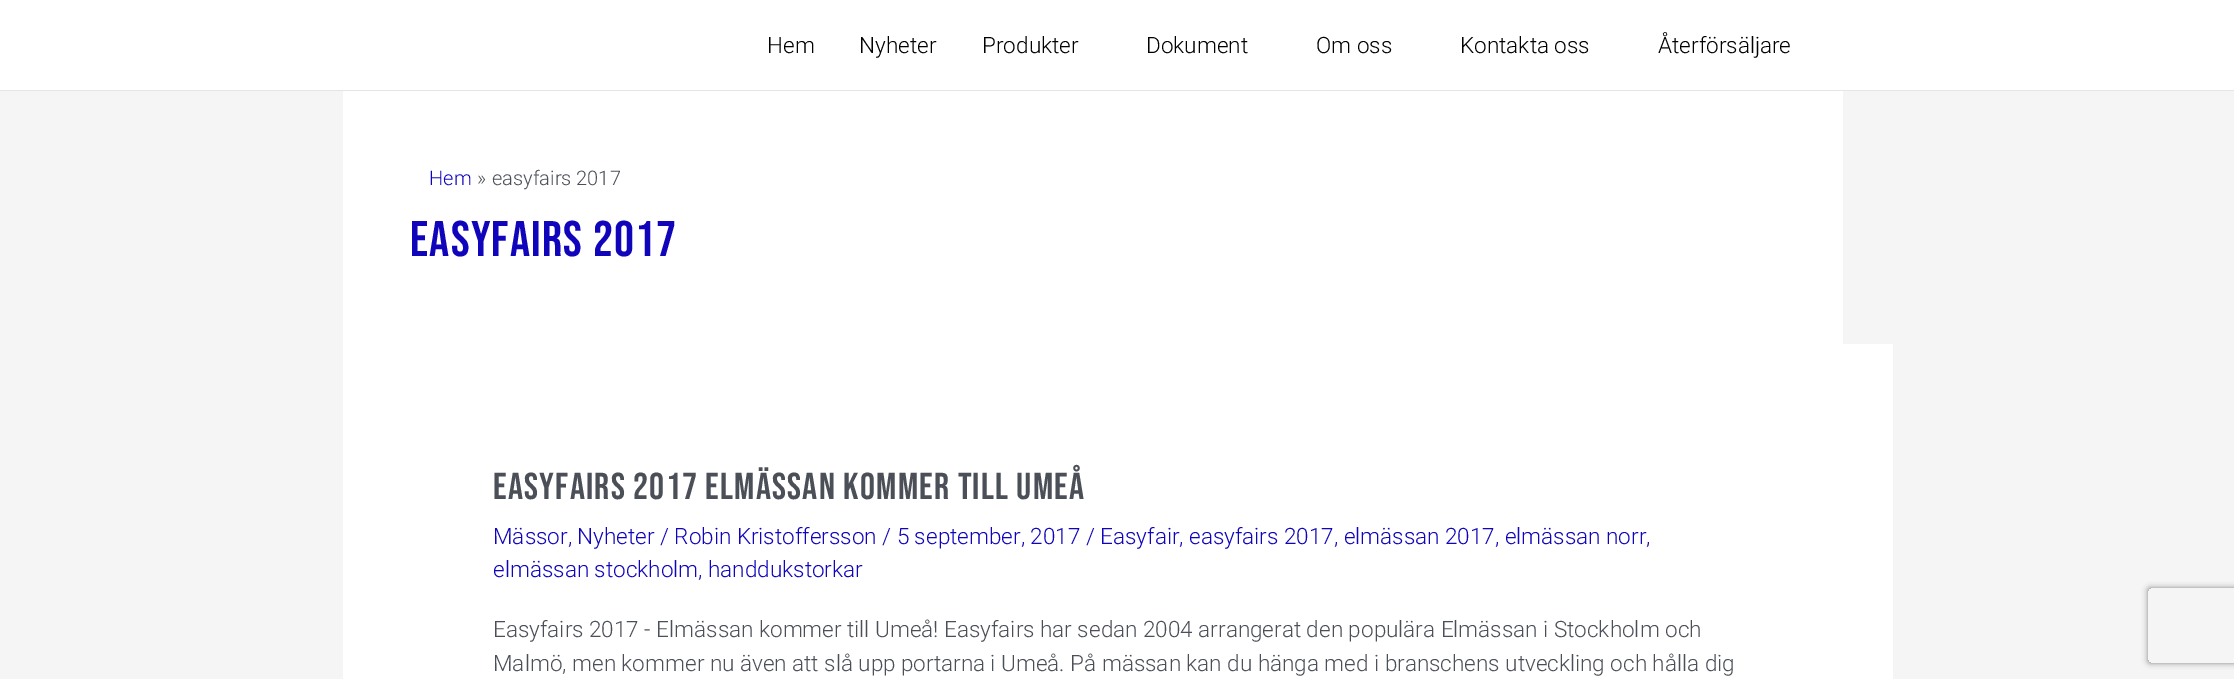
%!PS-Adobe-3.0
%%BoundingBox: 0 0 2234 679
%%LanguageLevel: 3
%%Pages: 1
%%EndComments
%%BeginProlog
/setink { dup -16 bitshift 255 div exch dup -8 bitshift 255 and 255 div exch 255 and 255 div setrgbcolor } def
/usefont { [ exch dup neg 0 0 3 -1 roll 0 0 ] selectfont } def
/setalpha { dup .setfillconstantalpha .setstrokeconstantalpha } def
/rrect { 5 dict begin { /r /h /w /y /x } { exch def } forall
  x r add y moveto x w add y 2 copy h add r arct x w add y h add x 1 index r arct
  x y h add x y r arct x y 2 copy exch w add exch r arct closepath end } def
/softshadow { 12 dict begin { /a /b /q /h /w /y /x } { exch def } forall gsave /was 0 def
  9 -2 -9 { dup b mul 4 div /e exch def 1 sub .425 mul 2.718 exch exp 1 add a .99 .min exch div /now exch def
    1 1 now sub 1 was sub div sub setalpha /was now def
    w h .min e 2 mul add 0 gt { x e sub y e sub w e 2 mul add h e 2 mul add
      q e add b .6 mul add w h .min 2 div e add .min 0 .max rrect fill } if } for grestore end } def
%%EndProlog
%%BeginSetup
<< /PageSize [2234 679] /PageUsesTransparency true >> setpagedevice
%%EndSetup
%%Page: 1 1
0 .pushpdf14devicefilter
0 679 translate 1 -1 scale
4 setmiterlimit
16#F5F5F5 setink
0 0 2234 679 rectfill
16#FFFFFF setink
0 0 2234 90 rectfill
16#E5E5E5 setink
0 90 2234 1 rectfill
/Roboto-Light 22.5 usefont
16#000000 setink
[
    [(Hem) 767 53]
    [(Nyheter) 859 53]
    [(Produkter) 982 53]
    [(Dokument) 1146 53]
    [(Om oss) 1316 53]
    [(Kontakta oss) 1460 53]
    [(Återförsäljare) 1658 53]
] { aload pop moveto show } forall
16#FFFFFF setink
343 91 1500 253 rectfill
/Roboto-Light 20 usefont
16#1005BB setink
429 185 moveto (Hem) show
16#4B4F58 setink
477 185 moveto (») show
492 185 moveto (easyfairs 2017) show
/BebasNeue-Regular 50 usefont
16#1005BB setink
410 256 moveto 1.25 0 (Easyfairs 2017) ashow
16#FFFFFF setink
343 344 1550 335 rectfill
/BebasNeue-Regular 37.5 usefont
16#4B4F58 setink
493 499 moveto 1.25 0 (EASYFAIRS 2017 ELMÄSSAN KOMMER TILL UMEÅ) ashow
/Roboto-Light 22.5 usefont
16#1005BB setink
493 544 moveto (Mässor, Nyheter / Robin Kristoffersson / 5 september, 2017 / Easyfair, easyfairs 2017, elmässan 2017, elmässan norr,) show
493 577 moveto (elmässan stockholm, handdukstorkar) show
16#4B4F58 setink
493 637 moveto (Easyfairs 2017 - Elmässan kommer till Umeå! Easyfairs har sedan 2004 arrangerat den populära Elmässan i Stockholm och) show
493 671 moveto (Malmö, men kommer nu även att slå upp portarna i Umeå. På mässan kan du hänga med i branschens utveckling och hålla dig) show
gsave
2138 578 moveto 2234 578 lineto 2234 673 lineto 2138 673 lineto closepath 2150.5 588 moveto 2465.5 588 lineto 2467 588 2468 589 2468 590.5 curveto 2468 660.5 lineto 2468 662 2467 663 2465.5 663 curveto 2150.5 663 lineto 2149 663 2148 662 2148 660.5 curveto 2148 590.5 lineto 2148 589 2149 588 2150.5 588 curveto closepath eoclip newpath
16#808080 setink
2148 588 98 75 2.5 3 1 softshadow
grestore
.poppdf14devicefilter showpage
%%EOF
